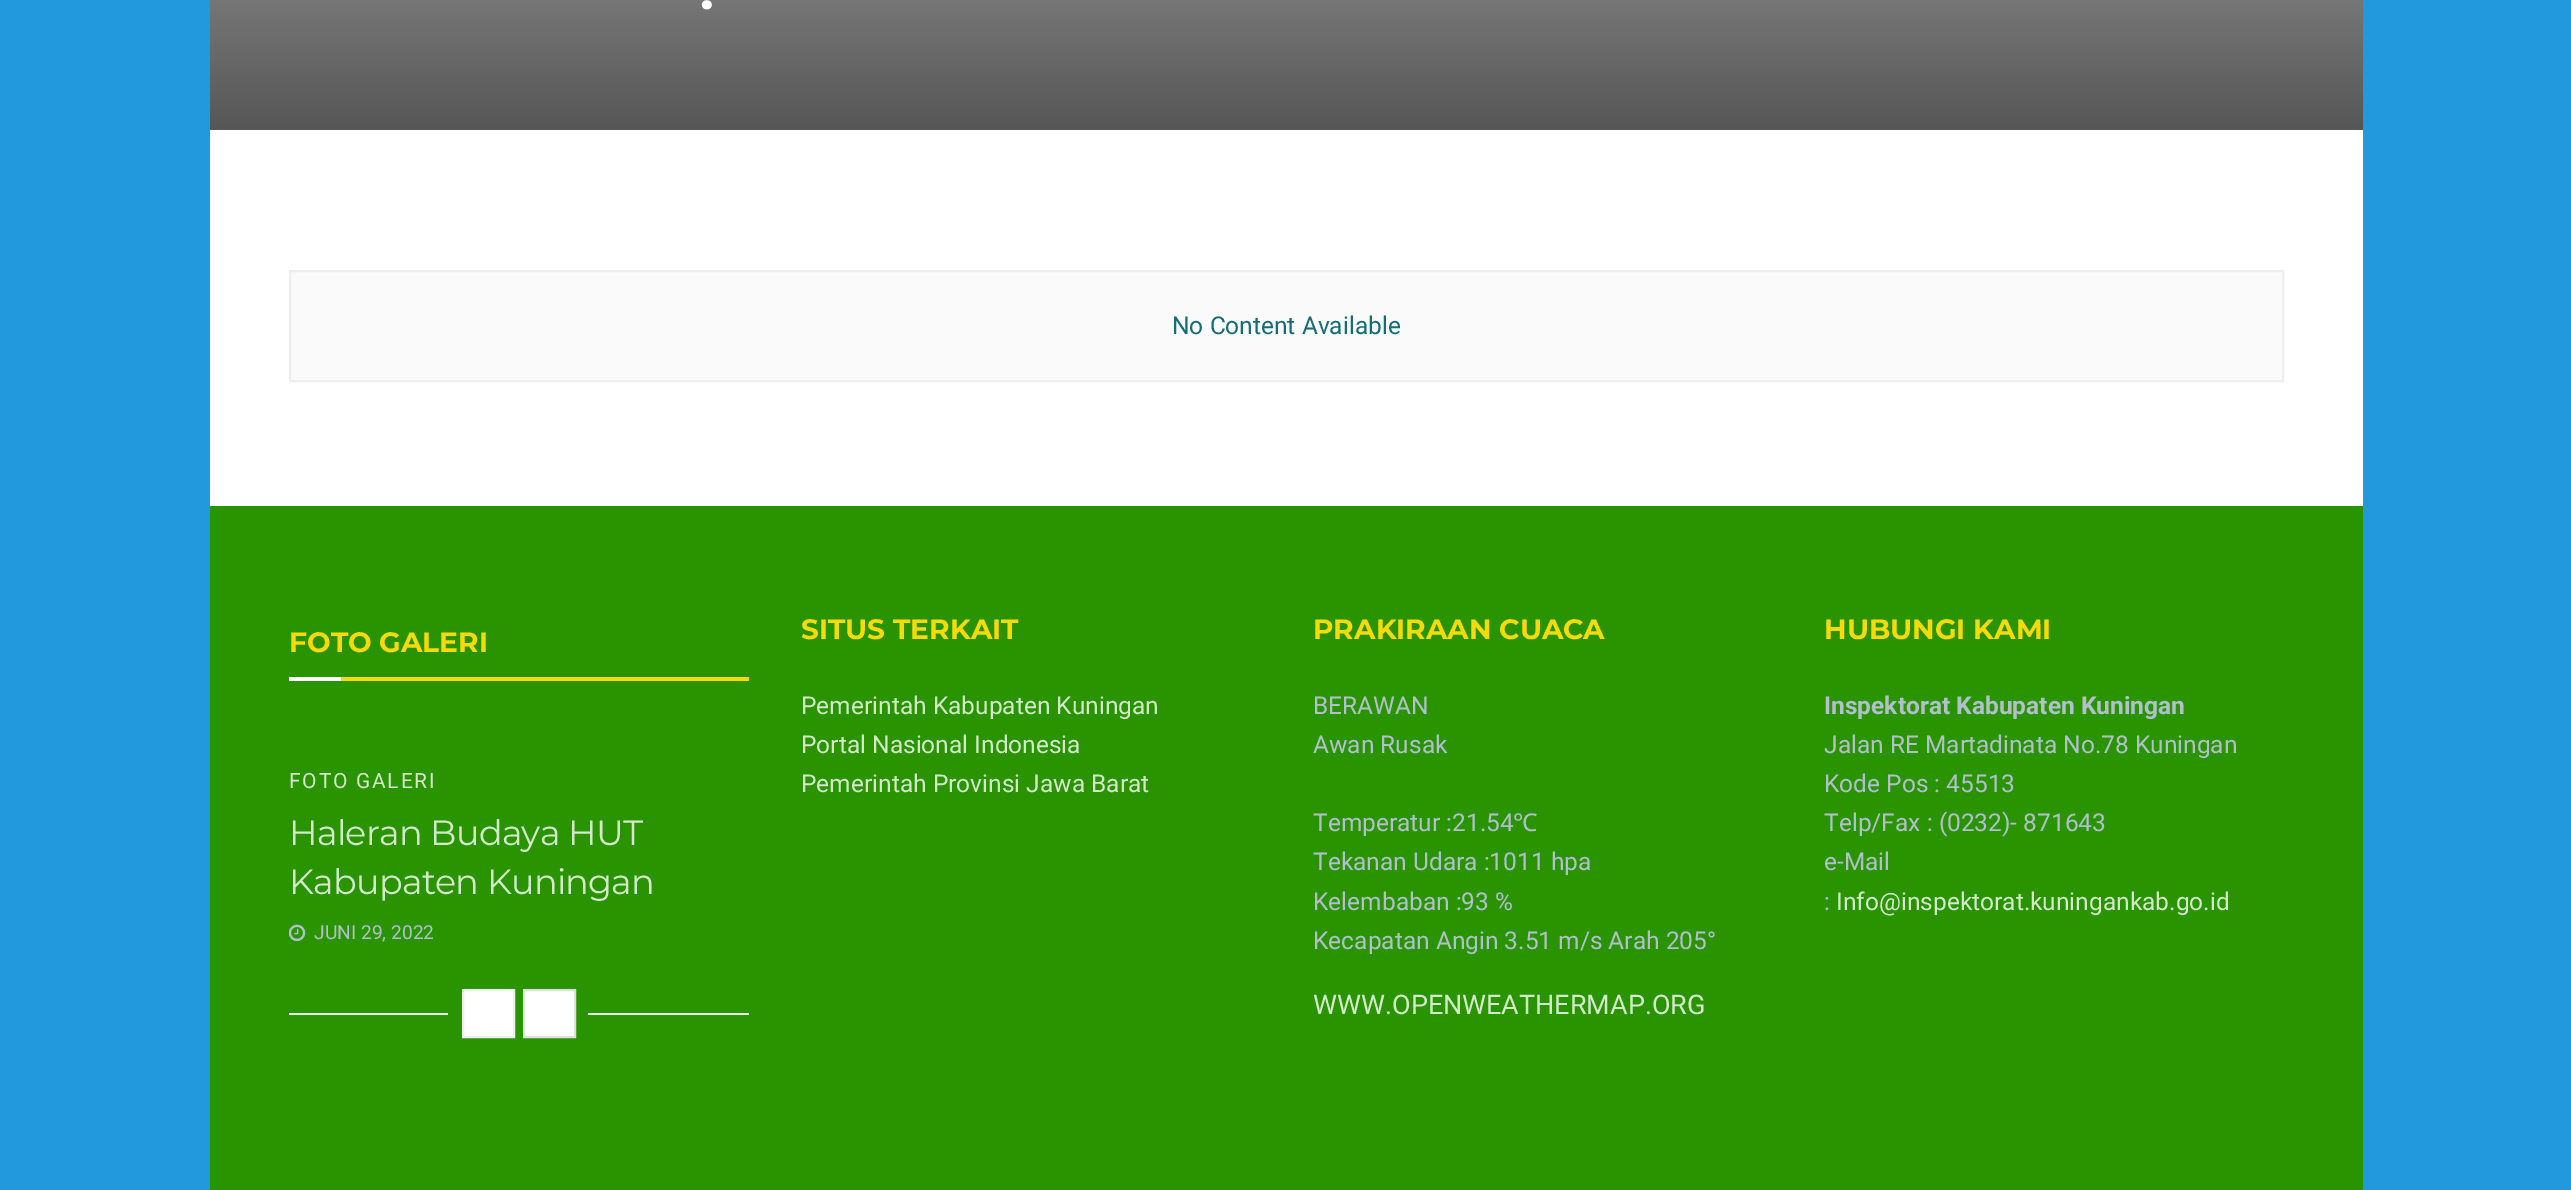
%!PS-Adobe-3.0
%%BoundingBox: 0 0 2571 1190
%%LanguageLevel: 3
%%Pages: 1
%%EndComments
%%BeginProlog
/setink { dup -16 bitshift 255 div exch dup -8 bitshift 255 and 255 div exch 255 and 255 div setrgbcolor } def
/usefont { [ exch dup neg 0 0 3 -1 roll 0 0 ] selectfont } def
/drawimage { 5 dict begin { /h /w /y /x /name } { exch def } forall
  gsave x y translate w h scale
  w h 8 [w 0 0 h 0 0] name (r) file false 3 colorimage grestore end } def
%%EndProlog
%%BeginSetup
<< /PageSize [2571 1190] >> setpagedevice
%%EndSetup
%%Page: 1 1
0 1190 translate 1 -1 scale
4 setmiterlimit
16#2399DD setink
0 0 2571 1190 rectfill
16#FFFFFF setink
210 130 2153 376 rectfill
gsave 210 0 moveto 2363 0 lineto 2363 130 lineto 210 130 lineto closepath clip newpath
<< /ShadingType 2 /ColorSpace /DeviceRGB /Coords [1286 -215 1286 130] /Extend [true true] /Function << /FunctionType 2 /Domain [0 1] /C0 [0.671 0.671 0.671] /C1 [0.337 0.337 0.337] /N 1 >> >> shfill grestore
/Roboto-Bold 63 usefont
698 9 moveto -3 0 (.) ashow
16#FAFAFA setink
290 271 moveto 2283 271 lineto 2283 381 lineto 290 381 lineto closepath gsave fill grestore
16#EEEEEE setink
2 setlinewidth
stroke
/Roboto-Regular 24.5 usefont
16#136D77 setink
1172 334 moveto (No Content Available) show
16#299300 setink
210 506 2153 684 rectfill
16#F6DA09 setink
341 677 408 4 rectfill
/Montserrat-Bold 28 usefont
289 652 moveto (FOTO GALERI) show
16#FFFFFF setink
289 677 52 4 rectfill
/Roboto-Regular 21 usefont
16#D4E9CC setink
289 788 moveto 1.75 0 (FOTO GALERI) ashow
/Montserrat-Regular 35 usefont
289 845 moveto -0.75 0 (Haleran Budaya HUT) ashow
289 894 moveto -0.75 0 (Kabupaten Kuningan) ashow
(img1.raw) 289 924 17 18 drawimage
/Roboto-Regular 19.25 usefont
16#B2C0CD setink
314 939 moveto (JUNI 29, 2022) show
16#EEEEEE setink
289 1013 159 2 rectfill
16#FFFFFF setink
463 990 moveto 514 990 lineto 514 1037 lineto 463 1037 lineto closepath gsave fill grestore
16#EEEEEE setink
stroke
16#FFFFFF setink
524 990 moveto 575 990 lineto 575 1037 lineto 524 1037 lineto closepath gsave fill grestore
16#E0E0E0 setink
stroke
16#EEEEEE setink
588 1013 161 2 rectfill
/Montserrat-Bold 28 usefont
16#F6DA09 setink
801 639 moveto (SITUS TERKAIT) show
/Roboto-Regular 24.5 usefont
16#D4E9CC setink
[
    [(Pemerintah Kabupaten Kuningan) 801 714]
    [(Portal Nasional Indonesia) 801 753]
    [(Pemerintah Provinsi Jawa Barat) 801 792]
] { aload pop moveto show } forall
/Montserrat-Bold 28 usefont
16#F6DA09 setink
1313 639 moveto (PRAKIRAAN CUACA) show
/Roboto-Regular 24.5 usefont
16#B2C0CD setink
[
    [(BERAWAN) 1313 714]
    [(Awan Rusak) 1313 753]
    [(Temperatur :21.54) 1313 831]
] { aload pop moveto show } forall
/NotoSans-Regular 24.5 usefont
1513 831 moveto (℃) show
/Roboto-Regular 24.5 usefont
[
    [(Tekanan Udara :1011 hpa) 1313 870]
    [(Kelembaban :93 %) 1313 910]
    [(Kecapatan Angin 3.51 m/s Arah 205°) 1313 949]
] { aload pop moveto show } forall
/Roboto-Regular 27 usefont
16#D4E9CC setink
1313 1014 moveto (WWW.OPENWEATHERMAP.ORG) show
/Montserrat-Bold 28 usefont
16#F6DA09 setink
1824 639 moveto (HUBUNGI KAMI) show
/Roboto-Bold 24.5 usefont
16#B2C0CD setink
1824 714 moveto (Inspektorat Kabupaten Kuningan) show
/Roboto-Regular 24.5 usefont
[
    [(Jalan RE Martadinata No.78 Kuningan) 1824 753]
    [(Kode Pos : 45513) 1824 792]
    [(Telp/Fax : \(0232\)- 871643) 1824 831]
    [(e-Mail) 1824 870]
    [(:) 1824 910]
] { aload pop moveto show } forall
16#D4E9CC setink
1836 910 moveto (Info@inspektorat.kuningankab.go.id) show
showpage
%%EOF
